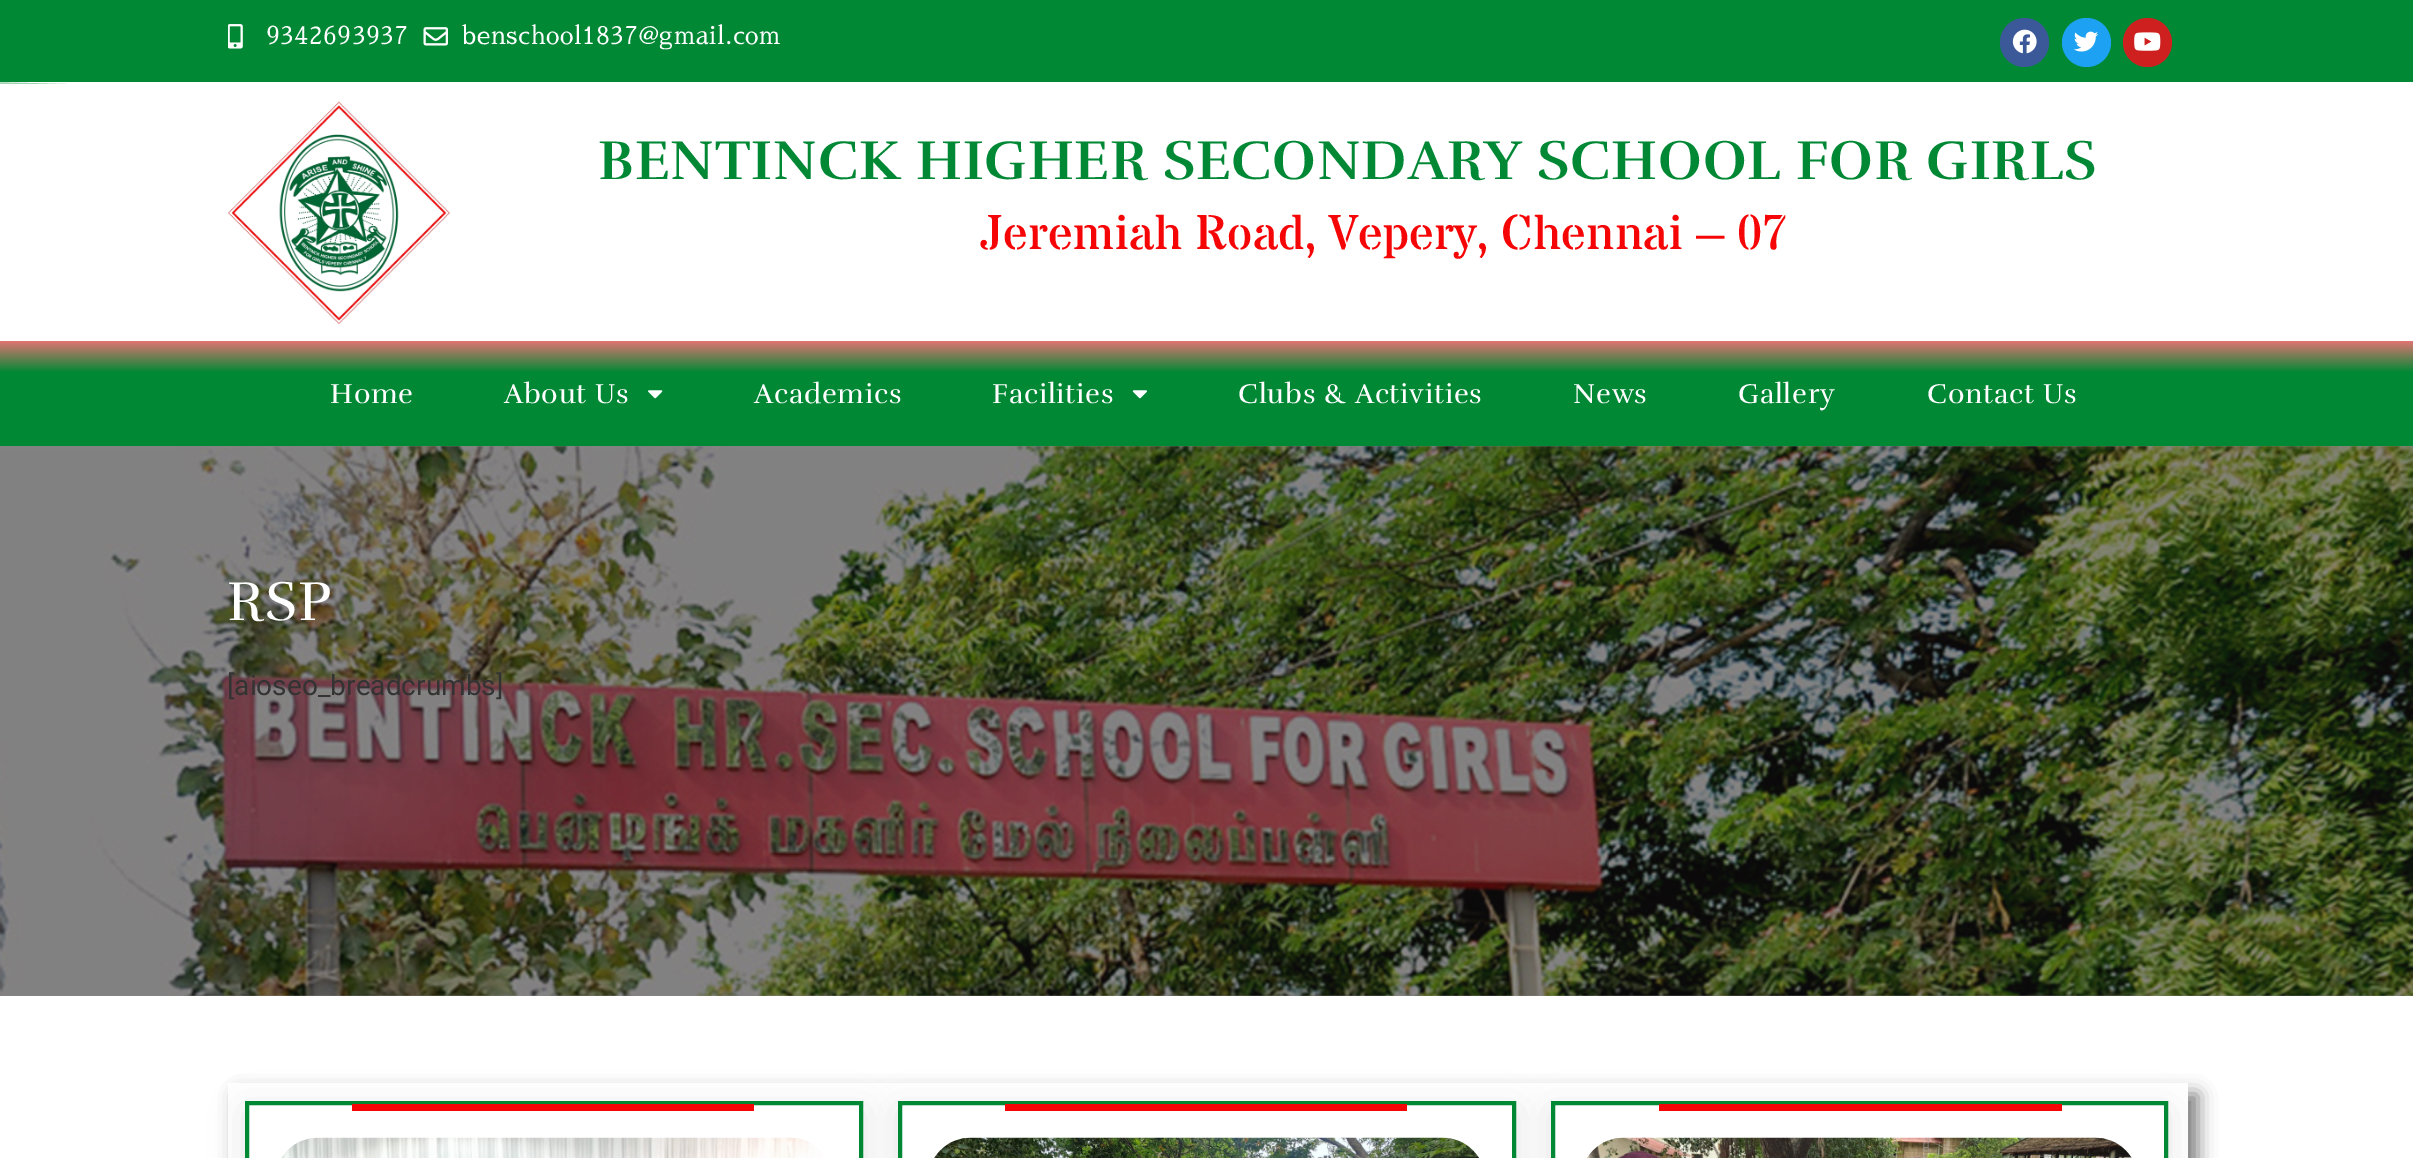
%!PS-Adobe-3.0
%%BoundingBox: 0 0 2413 1158
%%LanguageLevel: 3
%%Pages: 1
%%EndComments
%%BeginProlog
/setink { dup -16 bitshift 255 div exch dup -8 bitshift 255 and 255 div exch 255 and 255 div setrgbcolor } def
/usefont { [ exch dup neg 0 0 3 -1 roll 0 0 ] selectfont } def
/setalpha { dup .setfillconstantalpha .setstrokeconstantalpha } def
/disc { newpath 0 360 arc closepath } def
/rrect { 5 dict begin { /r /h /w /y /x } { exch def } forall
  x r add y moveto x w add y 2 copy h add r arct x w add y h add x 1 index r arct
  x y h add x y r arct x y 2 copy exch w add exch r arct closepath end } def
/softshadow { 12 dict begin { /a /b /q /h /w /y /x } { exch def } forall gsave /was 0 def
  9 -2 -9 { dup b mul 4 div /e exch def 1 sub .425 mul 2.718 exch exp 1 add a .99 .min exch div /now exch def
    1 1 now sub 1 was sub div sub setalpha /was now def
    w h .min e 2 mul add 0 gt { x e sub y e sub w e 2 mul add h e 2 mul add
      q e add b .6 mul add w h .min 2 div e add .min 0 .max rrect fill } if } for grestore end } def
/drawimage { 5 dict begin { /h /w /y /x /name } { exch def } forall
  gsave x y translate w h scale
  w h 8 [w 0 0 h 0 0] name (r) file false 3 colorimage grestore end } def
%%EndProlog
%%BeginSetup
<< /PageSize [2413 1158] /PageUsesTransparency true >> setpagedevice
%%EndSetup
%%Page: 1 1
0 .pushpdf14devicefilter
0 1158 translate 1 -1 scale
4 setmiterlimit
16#FFFFFF setink
0 0 2413 1158 rectfill
16#008834 setink
0 0 2413 82 rectfill
16#80C49A setink
0 82 76 2 rectfill
(img1.raw) 228 24 15 25 drawimage
/SawarabiMincho-Regular 24.5 usefont
16#FFFFFF setink
266 44 moveto 0.5 0 (9342693937) ashow
(img2.raw) 423 27 25 19 drawimage
462 44 moveto 0.5 0 (benschool1837@gmail.com) ashow
16#3B5998 setink
2024.5 42.5 24.5 disc fill
(img3.raw) 2012 29 25 25 drawimage
16#1DA1F2 setink
2086.5 42.5 24.5 disc fill
(img4.raw) 2074 31 25 21 drawimage
16#CD201F setink
2147.5 42.5 24.5 disc fill
(img5.raw) 2134 32 27 19 drawimage
16#FFFFFF setink
0 82 moveto 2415 82 lineto 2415 146 lineto closepath fill
0.25 setalpha
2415 82 moveto 0 82 lineto 0 203 lineto 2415 146 lineto closepath fill
1 setalpha
(img6.raw) 228 101 222 223 drawimage
/Rufina-Bold 56 usefont
16#008834 setink
598 179 moveto 0.9 0 (BENTINCK HIGHER SECONDARY SCHOOL FOR GIRLS) ashow
/StardosStencil-Regular 49 usefont
16#F50505 setink
980 249 moveto (Jeremiah Road, Vepery, Chennai – 07) show
gsave 0 341 moveto 2413 341 lineto 2413 446 lineto 0 446 lineto closepath clip newpath
<< /ShadingType 2 /ColorSpace /DeviceRGB /Coords [1207 341 1207 446] /Extend [true true] /Function << /FunctionType 3 /Domain [0 1] /Functions [<< /FunctionType 2 /Domain [0 1] /C0 [0.882 0.455 0.455] /C1 [0 0.533 0.204] /N 1 >> << /FunctionType 2 /Domain [0 1] /C0 [0 0.533 0.204] /C1 [0 0.533 0.204] /N 1 >>] /Bounds [0.3] /Encode [0 1 0 1] >> >> shfill grestore
/Rufina-Regular 28 usefont
16#FFFFFF setink
330 403 moveto 0.75 0 (Home) ashow
504 403 moveto 0.75 0 (About Us) ashow
(img7.raw) 648 390 15 9 drawimage
754 403 moveto 0.75 0 (Academics) ashow
992 403 moveto 0.75 0 (Facilities) ashow
(img8.raw) 1132 390 15 9 drawimage
1238 403 moveto 0.75 0 (Clubs & Activities) ashow
1573 403 moveto 0.75 0 (News) ashow
1738 403 moveto 0.75 0 (Gallery) ashow
1927 403 moveto 0.75 0 (Contact Us) ashow
(img9.raw) 0 446 2413 550 drawimage
/Rufina-Regular 56 usefont
227 620 moveto 0.9 0 (RSP) ashow
/Roboto-Regular 28 usefont
16#333333 setink
227 695 moveto ([aioseo_breadcrumbs]) show
gsave
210 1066 moveto 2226 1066 lineto 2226 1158 lineto 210 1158 lineto closepath 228 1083 moveto 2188 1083 lineto 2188 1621 lineto 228 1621 lineto closepath eoclip newpath
16#000000 setink
238 1094 1960 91 0 9 0.5 softshadow
grestore
16#000000 setink
245 1110 618 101 0 17.5 0.1 softshadow
16#FFFFFF setink
247 1103 moveto 861 1103 lineto 861 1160 lineto 247 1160 lineto closepath gsave fill grestore
16#008834 setink
4 setlinewidth
stroke
16#F50505 setink
352 1104 402 7 rectfill
(img10.raw) 281 1137 542 21 drawimage
16#000000 setink
898 1110 618 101 0 17.5 0.1 softshadow
16#FFFFFF setink
900 1103 moveto 1514 1103 lineto 1514 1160 lineto 900 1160 lineto closepath gsave fill grestore
16#008834 setink
stroke
16#F50505 setink
1005 1104 402 7 rectfill
(img11.raw) 934 1137 545 21 drawimage
gsave
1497 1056 moveto 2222 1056 lineto 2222 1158 lineto 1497 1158 lineto closepath 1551 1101 moveto 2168 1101 lineto 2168 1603 lineto 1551 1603 lineto closepath eoclip newpath
16#000000 setink
1551 1110 617 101 0 17.5 0.1 softshadow
grestore
16#008834 setink
1553 1103 613 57 rectstroke
16#F50505 setink
1659 1104 403 7 rectfill
(img12.raw) 1587 1137 545 21 drawimage
.poppdf14devicefilter showpage
%%EOF
